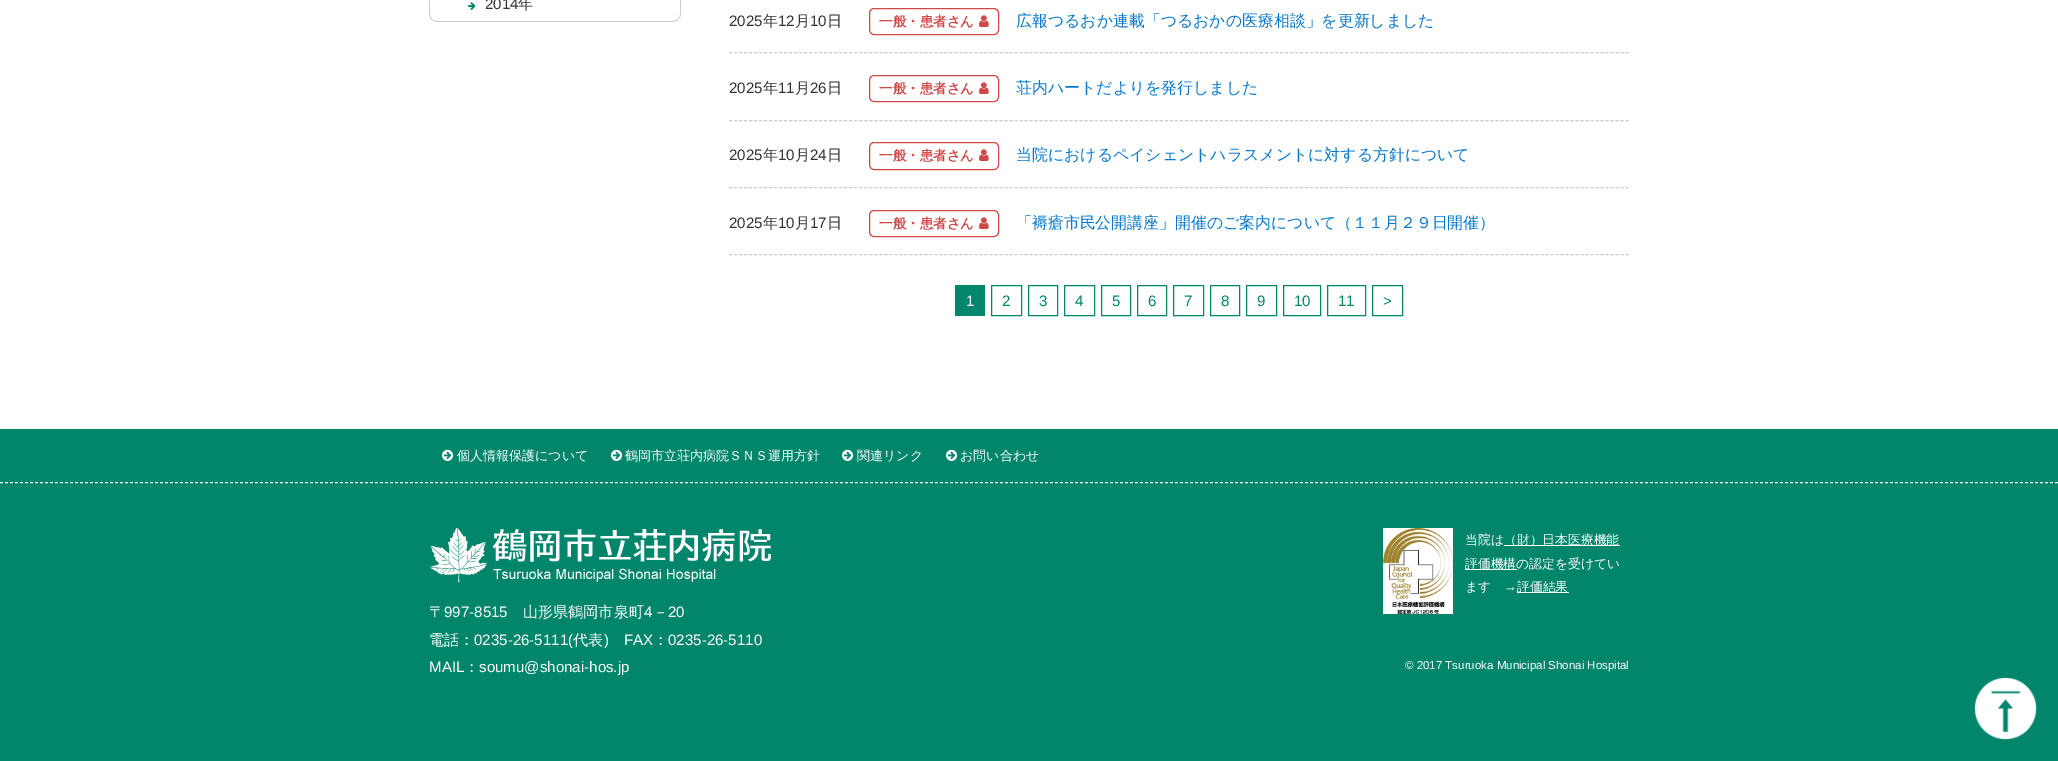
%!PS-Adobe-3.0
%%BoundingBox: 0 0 2058 761
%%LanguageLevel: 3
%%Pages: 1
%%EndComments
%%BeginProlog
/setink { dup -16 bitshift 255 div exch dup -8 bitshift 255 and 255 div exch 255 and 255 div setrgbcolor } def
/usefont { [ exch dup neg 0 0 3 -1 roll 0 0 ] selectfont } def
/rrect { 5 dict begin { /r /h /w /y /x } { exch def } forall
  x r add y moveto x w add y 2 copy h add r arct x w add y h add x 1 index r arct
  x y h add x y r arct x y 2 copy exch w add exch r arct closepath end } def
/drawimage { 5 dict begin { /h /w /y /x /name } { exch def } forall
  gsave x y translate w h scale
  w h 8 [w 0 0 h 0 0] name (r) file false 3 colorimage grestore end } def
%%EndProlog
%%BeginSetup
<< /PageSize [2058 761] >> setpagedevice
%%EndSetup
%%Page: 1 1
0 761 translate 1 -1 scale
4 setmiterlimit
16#FFFFFF setink
0 0 2058 761 rectfill
16#CCCCCC setink
429 -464 moveto 681 -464 lineto 681 14 lineto 681 18 677 22 673 22 curveto 437 22 lineto 433 22 429 18 429 14 curveto closepath 430 -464 moveto 680 -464 lineto 680 14 lineto 680 18 677 21 673 21 curveto 437 21 lineto 433 21 430 18 430 14 curveto closepath eofill
(img1.raw) 468 2 8 8 drawimage
/LiberationSans-Regular 15.1 usefont
16#333333 setink
485 9 moveto (2014) show
/WenQuanYiZenHei-Medium 15.1 usefont
518 9 moveto (年) show
16#CCCCCC setink
[3 2.01] 0 setdash
729 52.5 moveto 1629 52.5 lineto stroke
/LiberationSans-Regular 15.1 usefont
16#333333 setink
729 26 moveto (2025) show
/WenQuanYiZenHei-Medium 15.1 usefont
763 26 moveto (年) show
/LiberationSans-Regular 15.1 usefont
778 26 moveto (12) show
/WenQuanYiZenHei-Medium 15.1 usefont
795 26 moveto (月) show
/LiberationSans-Regular 15.1 usefont
810 26 moveto (10) show
/WenQuanYiZenHei-Medium 15.1 usefont
827 26 moveto (日) show
16#D04848 setink
[] 0 setdash
869.5 8.5 129 26 4.5 rrect stroke
/WenQuanYiZenHei-Bold 13.5 usefont
879 26 moveto (一般・患者さん) show
(img2.raw) 979 15 10 12 drawimage
/WenQuanYiZenHei-Medium 15.9 usefont
16#0677CE setink
1016 26 moveto (広報つるおか連載「つるおかの医療相談」を更新しました) show
16#CCCCCC setink
[3 2.01] 0 setdash
729 120.5 moveto 1629 120.5 lineto stroke
/LiberationSans-Regular 15.1 usefont
16#333333 setink
729 93 moveto (2025) show
/WenQuanYiZenHei-Medium 15.1 usefont
763 93 moveto (年) show
/LiberationSans-Regular 15.1 usefont
778 93 moveto (11) show
/WenQuanYiZenHei-Medium 15.1 usefont
795 93 moveto (月) show
/LiberationSans-Regular 15.1 usefont
810 93 moveto (26) show
/WenQuanYiZenHei-Medium 15.1 usefont
827 93 moveto (日) show
16#D04848 setink
[] 0 setdash
869.5 75.5 129 26 4.5 rrect stroke
/WenQuanYiZenHei-Bold 13.5 usefont
879 93 moveto (一般・患者さん) show
(img2.raw) 979 82 10 12 drawimage
/WenQuanYiZenHei-Medium 15.9 usefont
16#0677CE setink
1016 93 moveto (荘内ハートだよりを発行しました) show
16#CCCCCC setink
[3 2.01] 0 setdash
729 187.5 moveto 1629 187.5 lineto stroke
/LiberationSans-Regular 15.1 usefont
16#333333 setink
729 160 moveto (2025) show
/WenQuanYiZenHei-Medium 15.1 usefont
763 160 moveto (年) show
/LiberationSans-Regular 15.1 usefont
778 160 moveto (10) show
/WenQuanYiZenHei-Medium 15.1 usefont
795 160 moveto (月) show
/LiberationSans-Regular 15.1 usefont
810 160 moveto (24) show
/WenQuanYiZenHei-Medium 15.1 usefont
827 160 moveto (日) show
16#D04848 setink
[] 0 setdash
869.5 142.5 129 27 4.5 rrect stroke
/WenQuanYiZenHei-Bold 13.5 usefont
879 160 moveto (一般・患者さん) show
(img2.raw) 979 149 10 12 drawimage
/WenQuanYiZenHei-Medium 15.9 usefont
16#0677CE setink
1016 160 moveto (当院におけるペイシェントハラスメントに対する方針について) show
16#CCCCCC setink
[3 2.01] 0 setdash
729 254.5 moveto 1629 254.5 lineto stroke
/LiberationSans-Regular 15.1 usefont
16#333333 setink
729 228 moveto (2025) show
/WenQuanYiZenHei-Medium 15.1 usefont
763 228 moveto (年) show
/LiberationSans-Regular 15.1 usefont
778 228 moveto (10) show
/WenQuanYiZenHei-Medium 15.1 usefont
795 228 moveto (月) show
/LiberationSans-Regular 15.1 usefont
810 228 moveto (17) show
/WenQuanYiZenHei-Medium 15.1 usefont
827 228 moveto (日) show
16#D04848 setink
[] 0 setdash
869.5 210.5 129 26 4.5 rrect stroke
/WenQuanYiZenHei-Bold 13.5 usefont
879 228 moveto (一般・患者さん) show
(img2.raw) 979 217 10 12 drawimage
/WenQuanYiZenHei-Medium 15.9 usefont
16#0677CE setink
1016 228 moveto (「褥瘡市民公開講座」開催のご案内について（１１月２９日開催）) show
16#01866B setink
955 285 30 31 rectfill
/LiberationSans-Regular 15.1 usefont
16#FFFFFF setink
966 306 moveto (1) show
16#01866B setink
991.5 285.5 30 30 rectstroke
1002 306 moveto (2) show
1028.5 285.5 29 30 rectstroke
1039 306 moveto (3) show
1064.5 285.5 30 30 rectstroke
1075 306 moveto (4) show
1101.5 285.5 29 30 rectstroke
1112 306 moveto (5) show
1137.5 285.5 29 30 rectstroke
1148 306 moveto (6) show
1173.5 285.5 30 30 rectstroke
1184 306 moveto (7) show
1210.5 285.5 29 30 rectstroke
1221 306 moveto (8) show
1246.5 285.5 30 30 rectstroke
1257 306 moveto (9) show
1283.5 285.5 37 30 rectstroke
1294 306 moveto (10) show
1327.5 285.5 38 30 rectstroke
1338 306 moveto (11) show
1372.5 285.5 30 30 rectstroke
1383 306 moveto (>) show
0 429 2058 332 rectfill
16#FFFFFF setink
[3 2] 0 setdash
0 482.5 moveto 2058 482.5 lineto stroke
(img3.raw) 442 449 12 12 drawimage
/WenQuanYiZenHei-Medium 13 usefont
457 460 moveto (個人情報保護について) show
(img3.raw) 611 449 12 12 drawimage
625 460 moveto (鶴岡市立荘内病院ＳＮＳ運用方針) show
(img3.raw) 842 449 12 12 drawimage
857 460 moveto (関連リンク) show
(img3.raw) 946 449 12 12 drawimage
960 460 moveto (お問い合わせ) show
(img4.raw) 1383 528 70 86 drawimage
/WenQuanYiZenHei-Medium 12.8 usefont
1465 544 moveto (当院は) show
1504 545 116 1 rectfill
1504 544 moveto (（財）日本医療機能) show
1465 569 52 1 rectfill
1465 568 moveto (評価機構の認定を受けてい) show
1465 591 moveto (ます) show
/LiberationSans-Regular 12.8 usefont
1504 591 moveto (→) show
1517 592 52 1 rectfill
/WenQuanYiZenHei-Medium 12.8 usefont
1517 591 moveto (評価結果) show
(img5.raw) 430 528 342 54 drawimage
/WenQuanYiZenHei-Medium 15.1 usefont
429 617 moveto (〒) show
/LiberationSans-Regular 15.1 usefont
444 617 moveto (997-8515) show
/WenQuanYiZenHei-Medium 15.1 usefont
523 617 moveto (山形県鶴岡市泉町) show
/LiberationSans-Regular 15.1 usefont
644 617 moveto (4) show
/WenQuanYiZenHei-Medium 15.1 usefont
653 617 moveto (－) show
/LiberationSans-Regular 15.1 usefont
668 617 moveto (20) show
/WenQuanYiZenHei-Medium 15.1 usefont
429 645 moveto (電話：) show
/LiberationSans-Regular 15.1 usefont
474 645 moveto (0235-26-5111\() show
/WenQuanYiZenHei-Medium 15.1 usefont
573 645 moveto (代表) show
/LiberationSans-Regular 15.1 usefont
604 645 moveto (\)) show
624 645 moveto (FAX) show
/WenQuanYiZenHei-Medium 15.1 usefont
653 645 moveto (：) show
/LiberationSans-Regular 15.1 usefont
668 645 moveto (0235-26-5110) show
429 672 moveto (MAIL) show
/WenQuanYiZenHei-Medium 15.1 usefont
464 672 moveto (：) show
/LiberationSans-Regular 15.1 usefont
479 672 moveto (soumu@shonai-hos.jp) show
/LiberationSans-Regular 11.5 usefont
1405 669 moveto (© 2017 Tsuruoka Municipal Shonai Hospital) show
(img6.raw) 1974 677 63 63 drawimage
showpage
%%EOF
